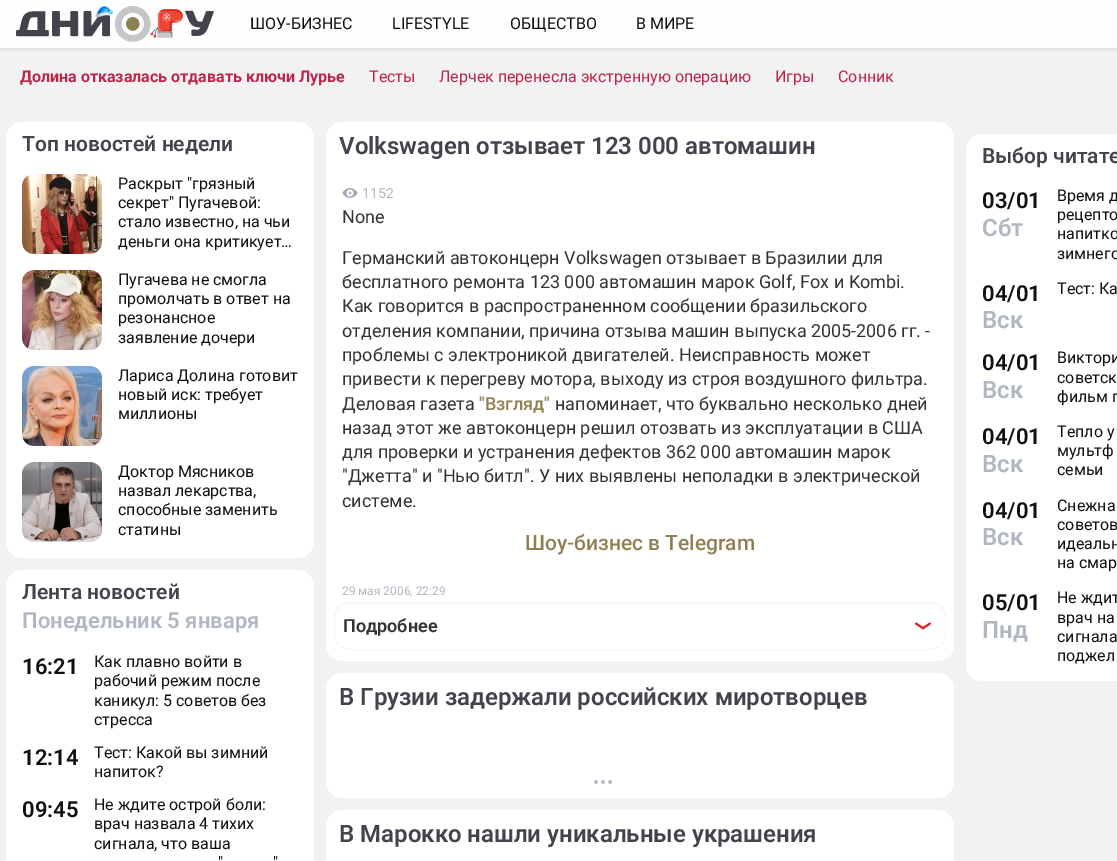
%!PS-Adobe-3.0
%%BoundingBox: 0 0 1117 861
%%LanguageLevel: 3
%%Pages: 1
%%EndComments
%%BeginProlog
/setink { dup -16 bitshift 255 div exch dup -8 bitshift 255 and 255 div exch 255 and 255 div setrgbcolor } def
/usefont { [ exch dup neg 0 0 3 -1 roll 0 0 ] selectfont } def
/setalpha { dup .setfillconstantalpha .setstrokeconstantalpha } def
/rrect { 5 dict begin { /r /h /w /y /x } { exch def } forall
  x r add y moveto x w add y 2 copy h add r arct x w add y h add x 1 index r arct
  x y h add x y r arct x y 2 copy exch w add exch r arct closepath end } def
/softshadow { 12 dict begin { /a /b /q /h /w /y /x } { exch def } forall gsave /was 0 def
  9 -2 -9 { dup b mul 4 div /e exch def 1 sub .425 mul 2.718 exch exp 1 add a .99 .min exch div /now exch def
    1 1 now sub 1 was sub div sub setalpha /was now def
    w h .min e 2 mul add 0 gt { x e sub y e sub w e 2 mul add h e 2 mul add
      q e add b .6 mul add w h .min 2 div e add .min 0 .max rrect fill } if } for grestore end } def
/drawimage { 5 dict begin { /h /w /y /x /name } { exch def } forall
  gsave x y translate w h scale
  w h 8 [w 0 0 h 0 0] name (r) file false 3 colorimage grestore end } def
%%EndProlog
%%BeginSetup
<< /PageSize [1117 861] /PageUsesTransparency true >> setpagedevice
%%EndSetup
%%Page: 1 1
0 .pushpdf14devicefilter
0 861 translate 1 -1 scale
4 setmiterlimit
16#F2F2F2 setink
0 0 1117 861 rectfill
16#000000 setink
1 1 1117 48 0 2 0.1 softshadow
16#FEFEFE setink
0 0 1117 48 rectfill
(img1.raw) 16 6 198 36 drawimage
/Roboto-Regular 16 usefont
16#111111 setink
[
    [(ШОУ-БИЗНЕС) 250 29]
    [(LIFESTYLE) 392 29]
    [(ОБЩЕСТВО) 510 29]
    [(В МИРЕ) 636 29]
] { aload pop moveto show } forall
/Roboto-Bold 16 usefont
16#BB2649 setink
20 82 moveto (Долина отказалась отдавать ключи Лурье) show
/Roboto-Regular 16 usefont
[
    [(Тесты) 369 82]
    [(Лерчек перенесла экстренную операцию) 439 82]
    [(Игры) 775 82]
    [(Сонник) 838 82]
] { aload pop moveto show } forall
16#FFFFFF setink
6 122 308 436 16 rrect fill
/Roboto-SemiBold 21 usefont
16#43424D setink
22 151 moveto (Топ новостей недели) show
(img2.raw) 22 174 80 80 drawimage
/Roboto-Regular 16 usefont
16#111111 setink
[
    [(Раскрыт "грязный) 118 189]
    [(секрет" Пугачевой:) 118 208]
    [(стало известно, на чьи) 118 227]
    [(деньги она критикует…) 118 247]
] { aload pop moveto show } forall
(img3.raw) 22 270 80 80 drawimage
[
    [(Пугачева не смогла) 118 285]
    [(промолчать в ответ на) 118 304]
    [(резонансное) 118 323]
    [(заявление дочери) 118 343]
] { aload pop moveto show } forall
(img4.raw) 22 366 80 80 drawimage
[
    [(Лариса Долина готовит) 118 381]
    [(новый иск: требует) 118 400]
    [(миллионы) 118 419]
] { aload pop moveto show } forall
(img5.raw) 22 462 80 80 drawimage
[
    [(Доктор Мясников) 118 477]
    [(назвал лекарства,) 118 496]
    [(способные заменить) 118 515]
    [(статины) 118 535]
] { aload pop moveto show } forall
16#FFFFFF setink
6 570 308 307 16 rrect fill
/Roboto-SemiBold 21 usefont
16#43424D setink
22 599 moveto (Лента новостей) show
/Roboto-SemiBold 22 usefont
16#AEB7C2 setink
22 628 moveto (Понедельник 5 января) show
16#111111 setink
22 674 moveto (16:21) show
/Roboto-Regular 16 usefont
[
    [(Как плавно войти в) 94 667]
    [(рабочий режим после) 94 686]
    [(каникул: 5 советов без) 94 706]
    [(стресса) 94 725]
] { aload pop moveto show } forall
/Roboto-SemiBold 22 usefont
22 765 moveto (12:14) show
/Roboto-Regular 16 usefont
94 758 moveto (Тест: Какой вы зимний) show
94 777 moveto (напиток?) show
/Roboto-SemiBold 22 usefont
22 817 moveto (09:45) show
/Roboto-Regular 16 usefont
[
    [(Не ждите острой боли:) 94 810]
    [(врач назвала 4 тихих) 94 829]
    [(сигнала, что ваша) 94 849]
    [(") 218 868]
    [(") 273 868]
] { aload pop moveto show } forall
16#FFFFFF setink
326 122 628 539 16 rrect fill
/Roboto-SemiBold 24 usefont
16#43424D setink
339 154 moveto (Volkswagen отзывает 123 000 автомашин) show
(img6.raw) 342 188 16 10 drawimage
/Roboto-Regular 14 usefont
16#AEB7C2 setink
362 198 moveto (1152) show
/Roboto-Regular 18 usefont
16#333333 setink
[
    [(None) 342 223]
    [(Германский автоконцерн Volkswagen отзывает в Бразилии для) 342 264]
    [(бесплатного ремонта 123 000 автомашин марок Golf, Fox и Kombi.) 342 288]
    [(Как говорится в распространенном сообщении бразильского) 342 312]
    [(отделения компании, причина отзыва машин выпуска 2005-2006 гг. -) 342 337]
    [(проблемы с электроникой двигателей. Неисправность может) 342 361]
    [(привести к перегреву мотора, выходу из строя воздушного фильтра.) 342 385]
    [(Деловая газета) 342 410]
] { aload pop moveto show } forall
/Roboto-Medium 18 usefont
16#907F53 setink
479 410 moveto ("Взгляд") show
/Roboto-Regular 18 usefont
16#333333 setink
[
    [(напоминает, что буквально несколько дней) 555 410]
    [(назад этот же автоконцерн решил отозвать из эксплуатации в США) 342 434]
    [(для проверки и устранения дефектов 362 000 автомашин марок) 342 458]
    [("Джетта" и "Нью битл". У них выявлены неполадки в электрической) 342 482]
    [(системе.) 342 507]
] { aload pop moveto show } forall
/Roboto-Medium 21 usefont
16#907F53 setink
525 550 moveto (Шоу-бизнес в Telegram) show
/Roboto-Regular 12 usefont
16#AEB7C2 setink
342 595 moveto (29 мая 2006, 22:29) show
16#F2F4F6 setink
334.5 602.5 611 47 15.5 rrect stroke
/Roboto-SemiBold 18 usefont
16#333333 setink
343 632 moveto (Подробнее) show
(img7.raw) 915 622 16 8 drawimage
16#FFFFFF setink
326 673 628 125 16 rrect fill
/Roboto-SemiBold 24 usefont
16#43424D setink
339 705 moveto (В Грузии задержали российских миротворцев) show
(img8.raw) 594 780 18 4 drawimage
16#FFFFFF setink
326 810 628 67 16 rrect fill
16#43424D setink
339 842 moveto (В Марокко нашли уникальные украшения) show
16#FFFFFF setink
966 134 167 547 16 rrect fill
/Roboto-SemiBold 21 usefont
16#43424D setink
982 163 moveto (Выбор читате) show
/Roboto-SemiBold 22 usefont
16#111111 setink
982 208 moveto (03/01) show
/Roboto-SemiBold 24 usefont
16#AEB7C2 setink
982 236 moveto (Сбт) show
/Roboto-Regular 16 usefont
16#111111 setink
[
    [(Время д) 1057 201]
    [(рецепто) 1057 220]
    [(напитко) 1057 239]
    [(зимнего) 1057 259]
] { aload pop moveto show } forall
/Roboto-SemiBold 22 usefont
982 301 moveto (04/01) show
/Roboto-SemiBold 24 usefont
16#AEB7C2 setink
982 328 moveto (Вск) show
/Roboto-Regular 16 usefont
16#111111 setink
1057 294 moveto (Тест: Ка) show
/Roboto-SemiBold 22 usefont
982 370 moveto (04/01) show
/Roboto-SemiBold 24 usefont
16#AEB7C2 setink
982 398 moveto (Вск) show
/Roboto-Regular 16 usefont
16#111111 setink
[
    [(Виктори) 1057 363]
    [(советск) 1057 383]
    [(фильм п) 1057 402]
] { aload pop moveto show } forall
/Roboto-SemiBold 22 usefont
982 444 moveto (04/01) show
/Roboto-SemiBold 24 usefont
16#AEB7C2 setink
982 472 moveto (Вск) show
/Roboto-Regular 16 usefont
16#111111 setink
[
    [(Тепло у) 1057 437]
    [(мультф) 1057 456]
    [(семьи) 1057 475]
] { aload pop moveto show } forall
/Roboto-SemiBold 22 usefont
982 518 moveto (04/01) show
/Roboto-SemiBold 24 usefont
16#AEB7C2 setink
982 545 moveto (Вск) show
/Roboto-Regular 16 usefont
16#111111 setink
[
    [(Снежна) 1057 511]
    [(советов) 1057 530]
    [(идеальн) 1057 549]
    [(на смар) 1057 568]
] { aload pop moveto show } forall
/Roboto-SemiBold 22 usefont
982 610 moveto (05/01) show
/Roboto-SemiBold 24 usefont
16#AEB7C2 setink
982 638 moveto (Пнд) show
/Roboto-Regular 16 usefont
16#111111 setink
[
    [(Не ждит) 1057 603]
    [(врач на) 1057 623]
    [(сигнала) 1057 642]
    [(поджел) 1057 661]
] { aload pop moveto show } forall
.poppdf14devicefilter showpage
%%EOF
